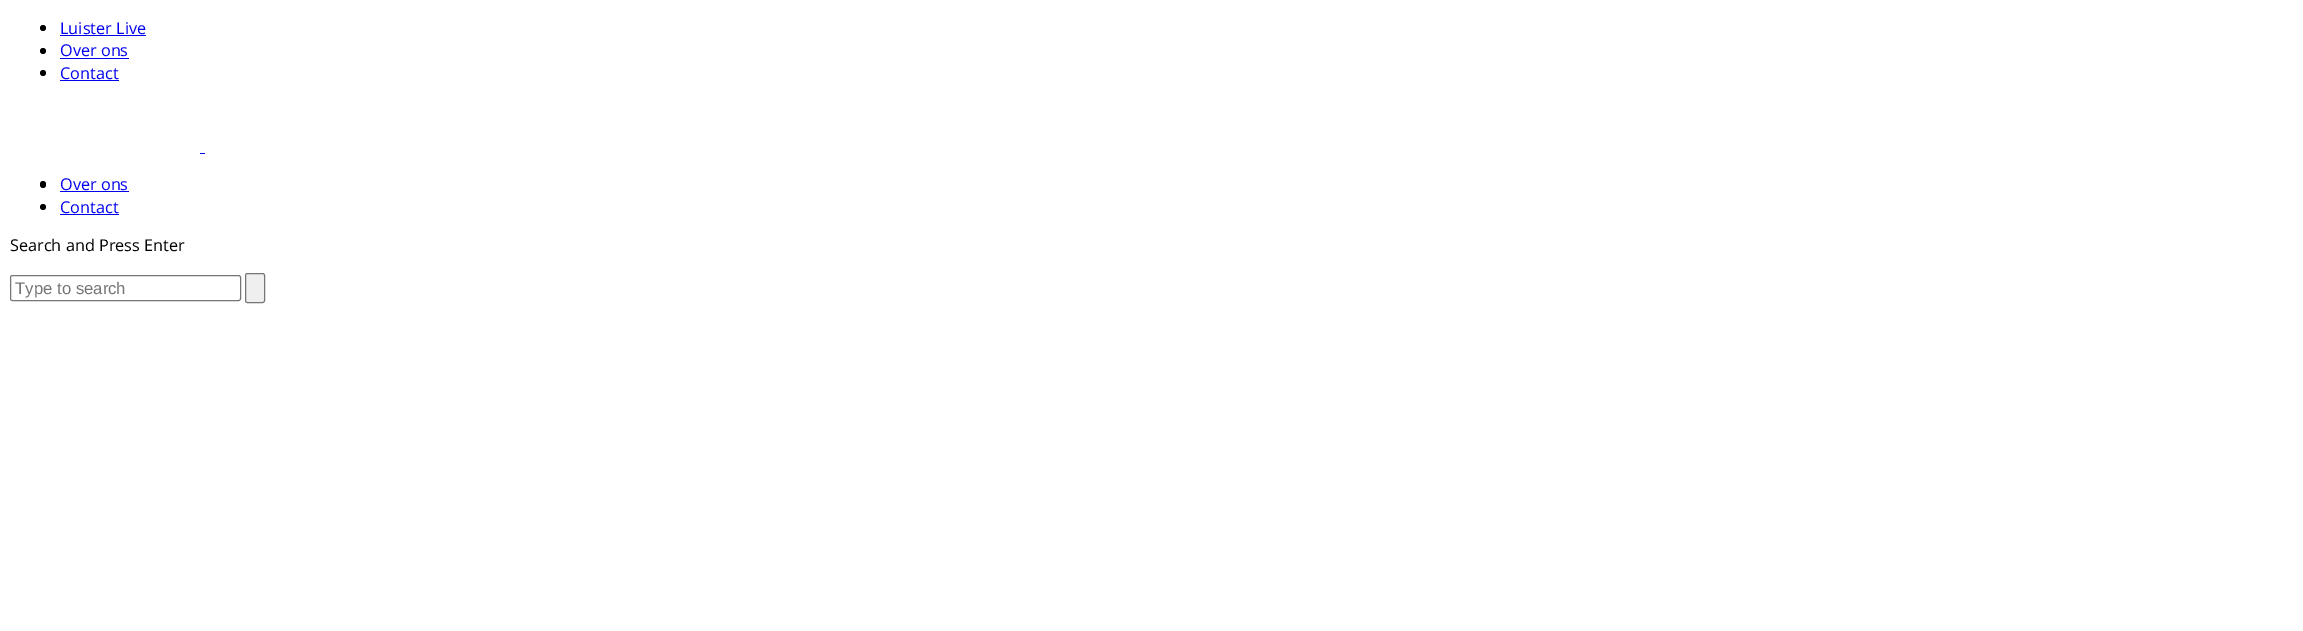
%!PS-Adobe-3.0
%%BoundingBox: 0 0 2303 631
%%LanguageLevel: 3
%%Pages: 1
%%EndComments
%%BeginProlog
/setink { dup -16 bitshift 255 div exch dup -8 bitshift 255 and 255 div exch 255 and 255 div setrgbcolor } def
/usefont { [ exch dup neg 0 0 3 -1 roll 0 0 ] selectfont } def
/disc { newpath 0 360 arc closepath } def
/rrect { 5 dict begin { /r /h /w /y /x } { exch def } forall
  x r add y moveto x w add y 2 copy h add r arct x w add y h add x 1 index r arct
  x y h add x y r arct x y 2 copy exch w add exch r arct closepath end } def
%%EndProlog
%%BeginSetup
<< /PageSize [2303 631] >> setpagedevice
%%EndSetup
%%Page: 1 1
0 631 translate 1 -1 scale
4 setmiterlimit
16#FFFFFF setink
0 0 2303 631 rectfill
16#000000 setink
43 28 3 disc fill
/OpenSans-Regular 16.25 usefont
16#0000EE setink
60 34 moveto (Luister Live) show
60 35 86 1 rectfill
16#000000 setink
43 51 3 disc fill
16#0000EE setink
60 56 moveto (Over ons) show
60 58 69 1 rectfill
16#000000 setink
43 73 3 disc fill
16#0000EE setink
60 79 moveto (Contact) show
60 80 59 1 rectfill
200 153 5 1 rectfill
16#000000 setink
40 181 6 7 3 rrect fill
16#0000EE setink
60 190 moveto (Over ons) show
60 191 69 1 rectfill
16#000000 setink
43 207 3 disc fill
16#0000EE setink
60 213 moveto (Contact) show
60 214 59 1 rectfill
16#000000 setink
10 251 moveto (Search and Press Enter) show
16#767676 setink
10.5 275.5 230 25 2 rrect stroke
/LiberationSans-Regular 16.75 usefont
16#757575 setink
15 294 moveto (Type to search) show
16#EFEFEF setink
245.5 273.5 19 29 2 rrect gsave fill grestore
16#767676 setink
stroke
showpage
%%EOF
